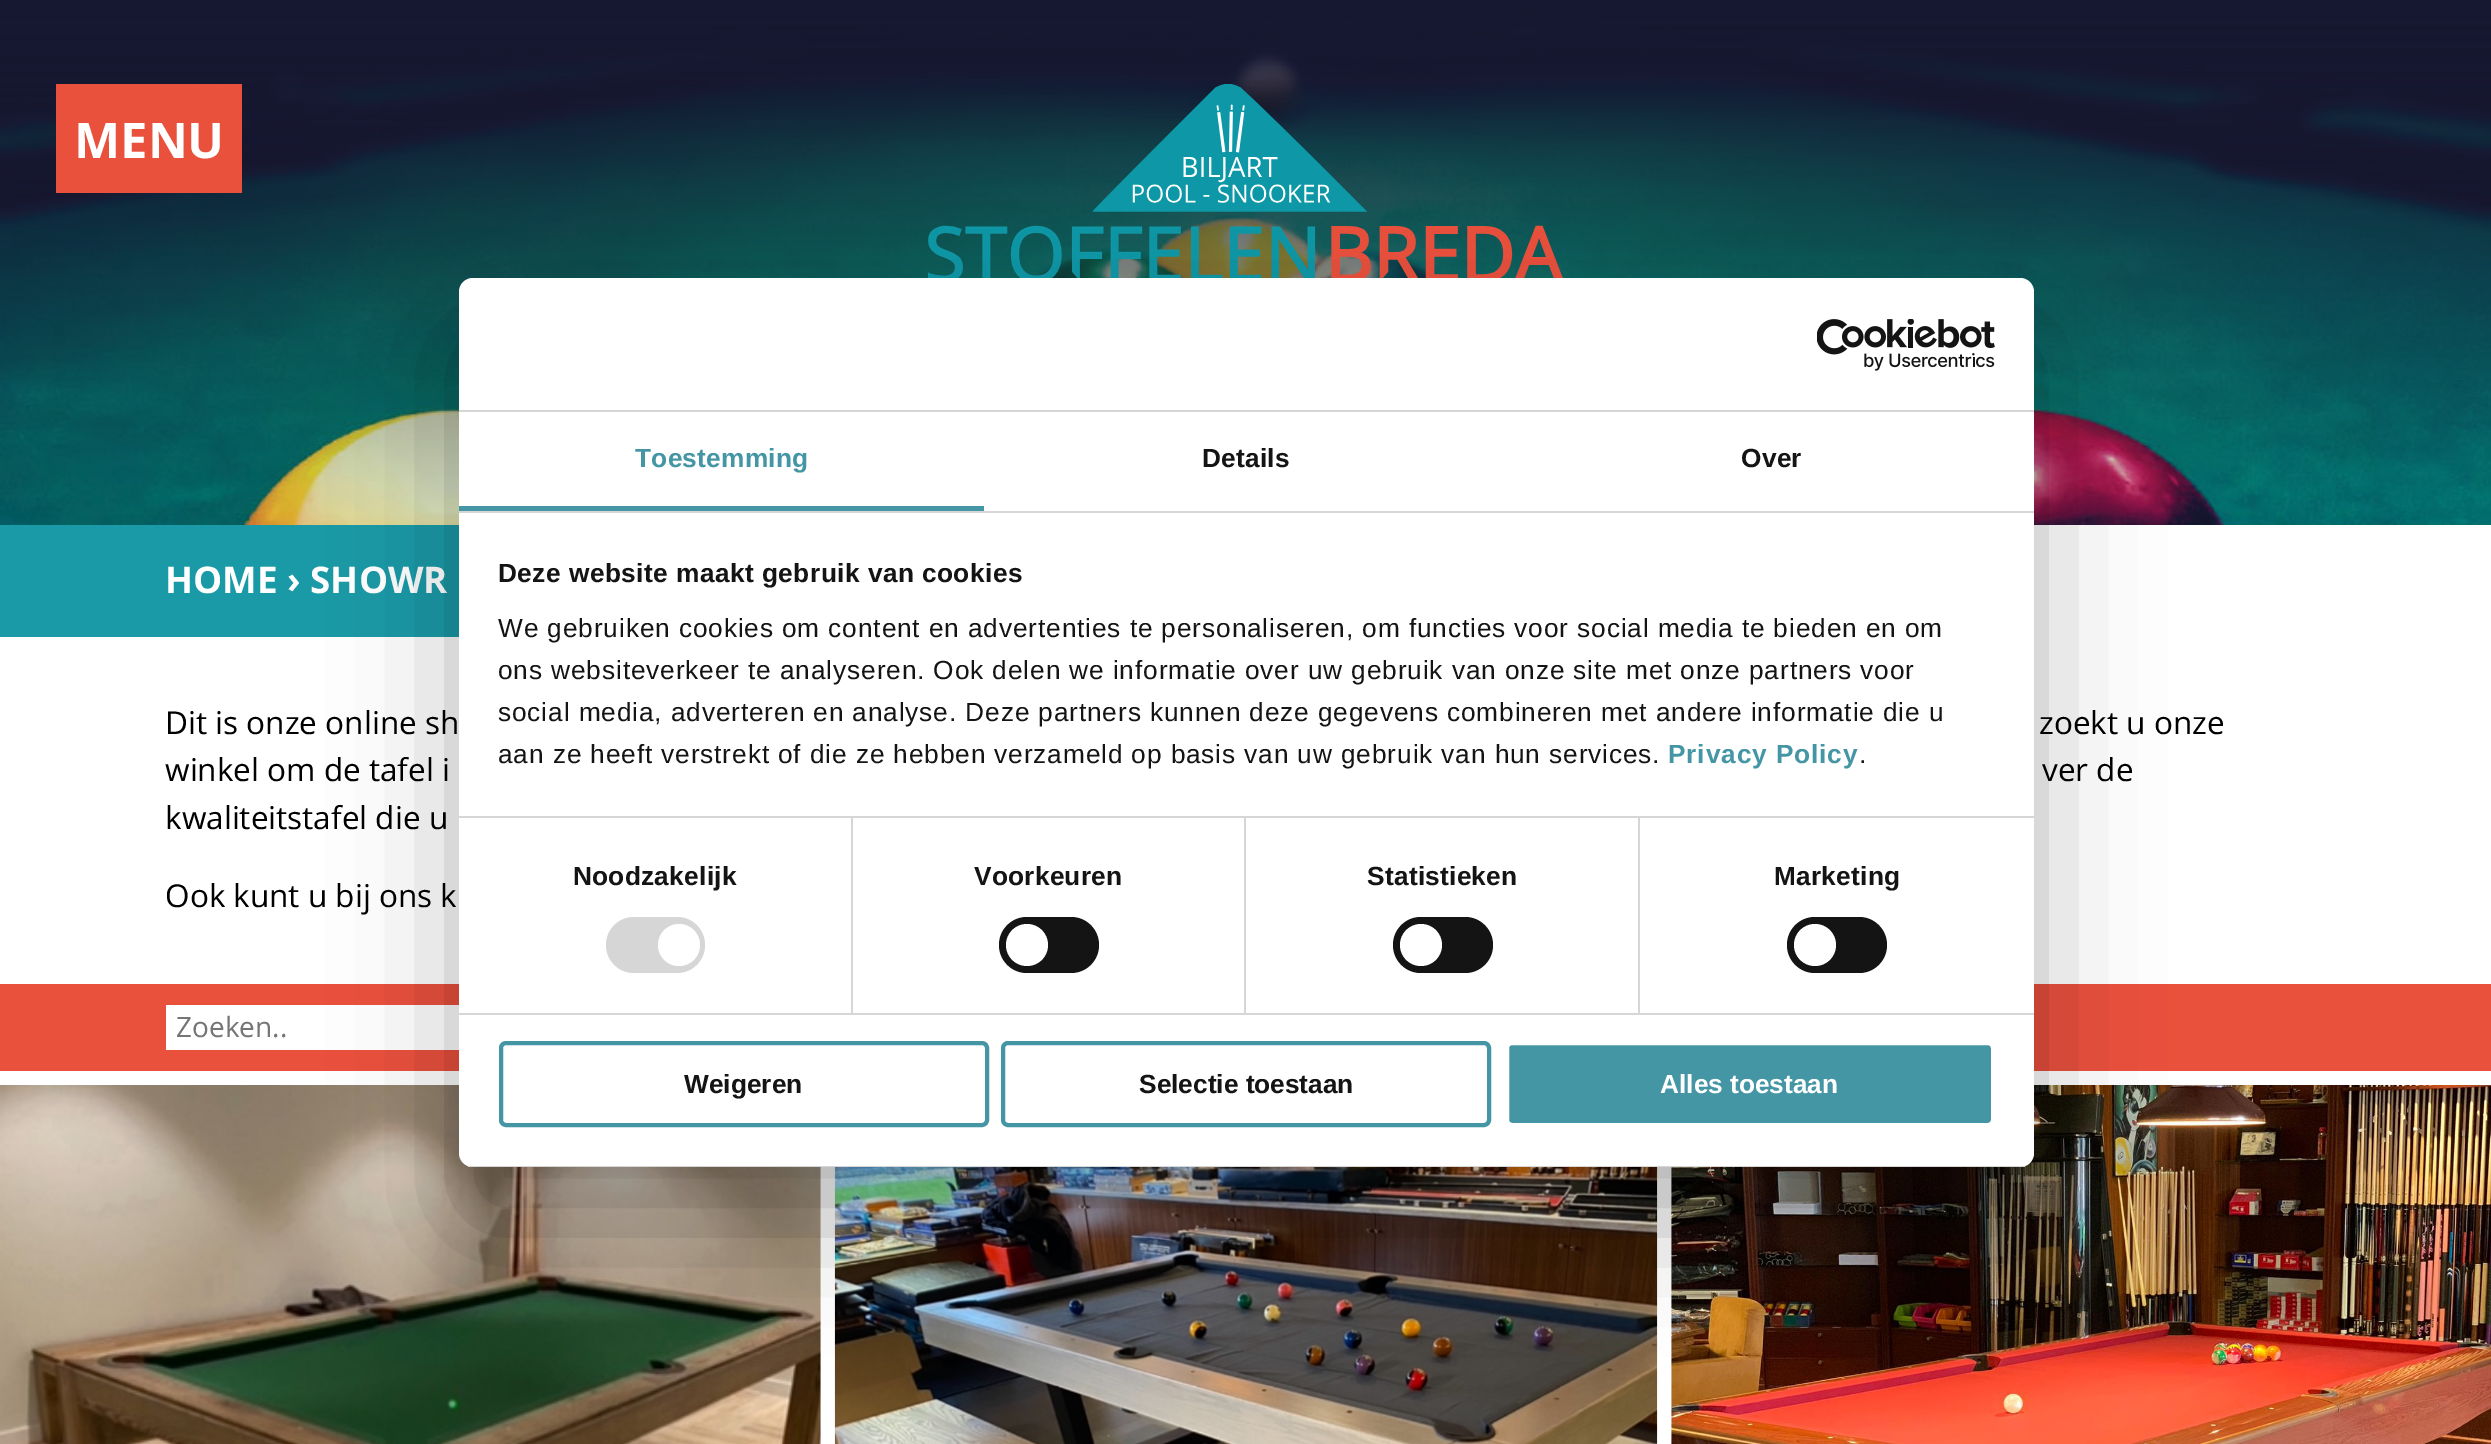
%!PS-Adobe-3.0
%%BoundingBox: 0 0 2491 1444
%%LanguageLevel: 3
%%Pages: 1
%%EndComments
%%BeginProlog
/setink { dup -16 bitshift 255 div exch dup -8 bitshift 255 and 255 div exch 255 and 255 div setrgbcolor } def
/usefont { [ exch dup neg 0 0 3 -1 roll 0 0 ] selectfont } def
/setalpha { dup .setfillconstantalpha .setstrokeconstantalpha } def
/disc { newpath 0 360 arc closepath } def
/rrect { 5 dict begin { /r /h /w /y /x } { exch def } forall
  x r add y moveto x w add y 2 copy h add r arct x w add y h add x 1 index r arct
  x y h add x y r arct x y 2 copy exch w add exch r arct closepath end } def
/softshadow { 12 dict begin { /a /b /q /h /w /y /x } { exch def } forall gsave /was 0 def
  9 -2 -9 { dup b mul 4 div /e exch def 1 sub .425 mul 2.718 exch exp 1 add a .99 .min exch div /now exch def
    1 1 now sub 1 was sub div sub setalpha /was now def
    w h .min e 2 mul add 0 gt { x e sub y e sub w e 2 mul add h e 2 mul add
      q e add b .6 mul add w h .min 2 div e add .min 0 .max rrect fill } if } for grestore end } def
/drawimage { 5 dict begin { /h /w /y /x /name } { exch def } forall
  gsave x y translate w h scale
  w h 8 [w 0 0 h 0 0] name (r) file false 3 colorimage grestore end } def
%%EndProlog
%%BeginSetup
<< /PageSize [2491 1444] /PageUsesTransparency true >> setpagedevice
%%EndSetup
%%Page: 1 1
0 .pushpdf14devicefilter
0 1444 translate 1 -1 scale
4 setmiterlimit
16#FFFFFF setink
0 0 2491 1444 rectfill
(img1.raw) 0 0 2491 525 drawimage
16#EA513D setink
56 84 186 109 rectfill
/OpenSans-Bold 49 usefont
16#FFFFFF setink
74 158 moveto (MENU) show
(img2.raw) 928 84 635 194 drawimage
gsave
0 525 1489 112 rectclip
16#1A9AA6 setink
1344 525 moveto -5 525 lineto -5 654 lineto 1344 654 lineto 1490 525 lineto closepath fill
grestore
/OpenSans-Bold 36.75 usefont
165 593 moveto (HOME › SHOWR) show
/OpenSans-Regular 31.5 usefont
16#000000 setink
[
    [(Dit is onze online sh) 165 734]
    [(zoekt u onze) 2039 734]
    [(winkel om de tafel i) 165 781]
    [(ver de) 2042 781]
    [(kwaliteitstafel die u) 165 829]
    [(Ook kunt u bij ons k) 165 907]
] { aload pop moveto show } forall
16#EA513D setink
0 984 2491 87 rectfill
16#FFFFFF setink
166 1005 293 45 rectfill
/OpenSans-Regular 28 usefont
16#757575 setink
176 1037 moveto (Zoeken..) show
(img3.raw) 0 1085 821 359 drawimage
(img4.raw) 834 1167 824 277 drawimage
(img5.raw) 1671 1085 820 359 drawimage
16#000000 setink
459 334 1575 889 14 59.5 0.3 softshadow
16#FFFFFF setink
459 278 1575 889 14 rrect fill
16#D6D6D6 setink
459 410 1575 2 rectfill
(img6.raw) 1817 319 178 52 drawimage
459 511 1575 2 rectfill
16#4596A5 setink
459 506 525 5 rectfill
/LiberationSans-Bold 26.25 usefont
635 467 moveto 0.25 0 (Toestemming) ashow
16#141414 setink
1202 467 moveto 0.25 0 (Details) ashow
1741 467 moveto 0.25 0 (Over) ashow
[
    [851 817 2 196 16#D6D6D6]
    [1244 817 2 196 16#D6D6D6]
    [1638 817 2 196 16#D6D6D6]
    [459 816 1575 2 16#D6D6D6]
] { aload pop setink rectfill } forall
16#141414 setink
498 582 moveto 0.45 0 (Deze website maakt gebruik van cookies) ashow
/LiberationSans-Regular 26.25 usefont
498 637 moveto 0.88 0 (We gebruiken cookies om content en advertenties te personaliseren, om functies voor social media te bieden en om) ashow
498 679 moveto 0.88 0 (ons websiteverkeer te analyseren. Ook delen we informatie over uw gebruik van onze site met onze partners voor) ashow
498 721 moveto 0.88 0 (social media, adverteren en analyse. Deze partners kunnen deze gegevens combineren met andere informatie die u) ashow
498 763 moveto 0.88 0 (aan ze heeft verstrekt of die ze hebben verzameld op basis van uw gebruik van hun services.) ashow
/LiberationSans-Bold 26.25 usefont
16#4596A5 setink
1668 763 moveto 0.88 0 (Privacy Policy) ashow
/LiberationSans-Regular 26.25 usefont
16#141414 setink
1859 763 moveto 0.88 0 (.) ashow
16#D6D6D6 setink
459 1013 1575 2 rectfill
/LiberationSans-Bold 26.25 usefont
16#141414 setink
573 885 moveto 0.25 0 (Noodzakelijk) ashow
16#D6D6D6 setink
606 917 99 56 28 rrect fill
16#FFFFFF setink
679 945 21 disc fill
16#141414 setink
974 885 moveto 0.25 0 (Voorkeuren) ashow
999 917 100 56 28 rrect fill
16#FFFFFF setink
1027 945 21 disc fill
16#141414 setink
1367 885 moveto 0.25 0 (Statistieken) ashow
1393 917 100 56 28 rrect fill
16#FFFFFF setink
1421 945 21 disc fill
16#141414 setink
1774 885 moveto 0.25 0 (Marketing) ashow
1787 917 100 56 28 rrect fill
16#FFFFFF setink
1815 945 21 disc fill
gsave
459 278 1575 889 14 rrect clip newpath
16#D6D6D6 setink
468 1166 1557 1 rectfill
grestore
16#4596A5 setink
4 setlinewidth
501 1043 486 82 5 rrect stroke
16#141414 setink
684 1093 moveto (Weigeren) show
16#4596A5 setink
1003 1043 486 82 5 rrect stroke
16#141414 setink
1139 1093 moveto (Selectie toestaan) show
16#4596A5 setink
1507 1043 486 82 5 rrect gsave fill grestore
16#FFFFFF setink
stroke
1660 1093 moveto (Alles toestaan) show
.poppdf14devicefilter showpage
%%EOF
